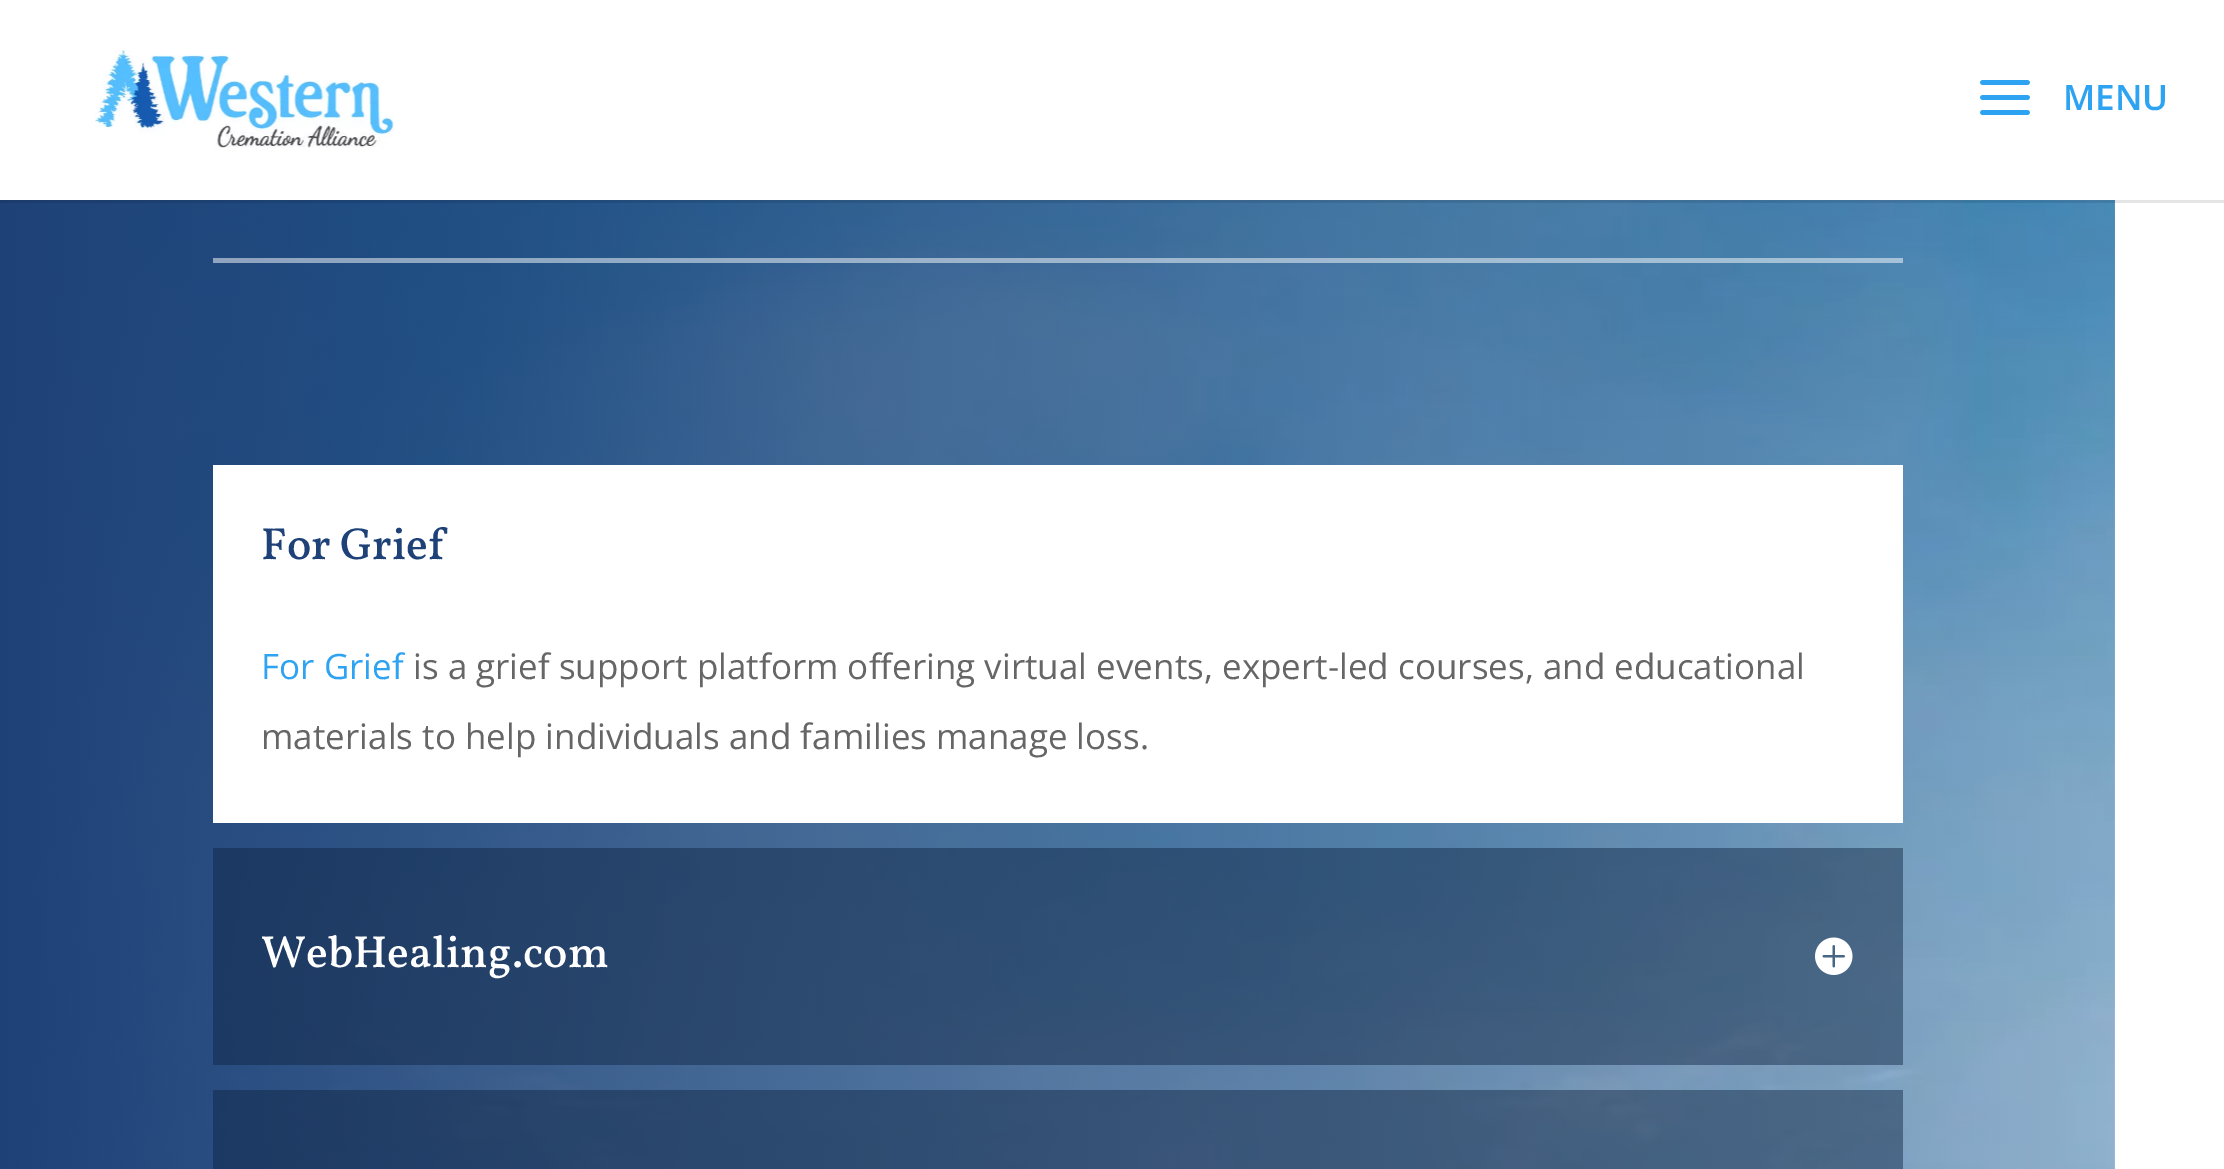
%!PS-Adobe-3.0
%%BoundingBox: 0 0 2224 1169
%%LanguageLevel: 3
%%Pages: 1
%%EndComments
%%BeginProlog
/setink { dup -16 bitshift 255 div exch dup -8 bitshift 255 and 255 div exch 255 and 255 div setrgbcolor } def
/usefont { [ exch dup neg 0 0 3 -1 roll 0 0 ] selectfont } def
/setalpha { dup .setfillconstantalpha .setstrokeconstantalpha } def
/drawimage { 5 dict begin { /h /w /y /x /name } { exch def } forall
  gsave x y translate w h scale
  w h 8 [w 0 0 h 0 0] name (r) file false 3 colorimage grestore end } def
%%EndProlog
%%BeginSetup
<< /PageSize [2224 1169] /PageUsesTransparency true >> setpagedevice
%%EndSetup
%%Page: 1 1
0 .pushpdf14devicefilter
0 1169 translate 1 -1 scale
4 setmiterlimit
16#FFFFFF setink
0 0 2224 1169 rectfill
(img3.raw) 0 200 2115 969 drawimage
0.1 setalpha
16#000000 setink
0 200 2224 3 rectfill
1 setalpha
(img1.raw) 95 50 300 98 drawimage
(img2.raw) 1980 80 50 35 drawimage
/OpenSans-SemiBold 35 usefont
16#2EA3F2 setink
2063 110 moveto (MENU) show
0.5 setalpha
16#FFFFFF setink
213 258 1690 5 rectfill
1 setalpha
213 465 1690 358 rectfill
/Vollkorn-Medium 45 usefont
16#1E4278 setink
261 559 moveto (For Grief) show
/OpenSans-Regular 35 usefont
16#2EA3F2 setink
261 679 moveto (For Grief) show
16#666666 setink
413 679 moveto (is a grief support platform offering virtual events, expert-led courses, and educational) show
261 749 moveto (materials to help individuals and families manage loss.) show
0.45 setalpha
16#0C213F setink
213 848 1690 217 rectfill
/Vollkorn-Medium 45 usefont
1 setalpha
16#FFFFFF setink
261 967 moveto (WebHealing.com) show
(img4.raw) 1815 937 38 38 drawimage
0.45 setalpha
16#0C213F setink
213 1090 1690 79 rectfill
.poppdf14devicefilter showpage
%%EOF
